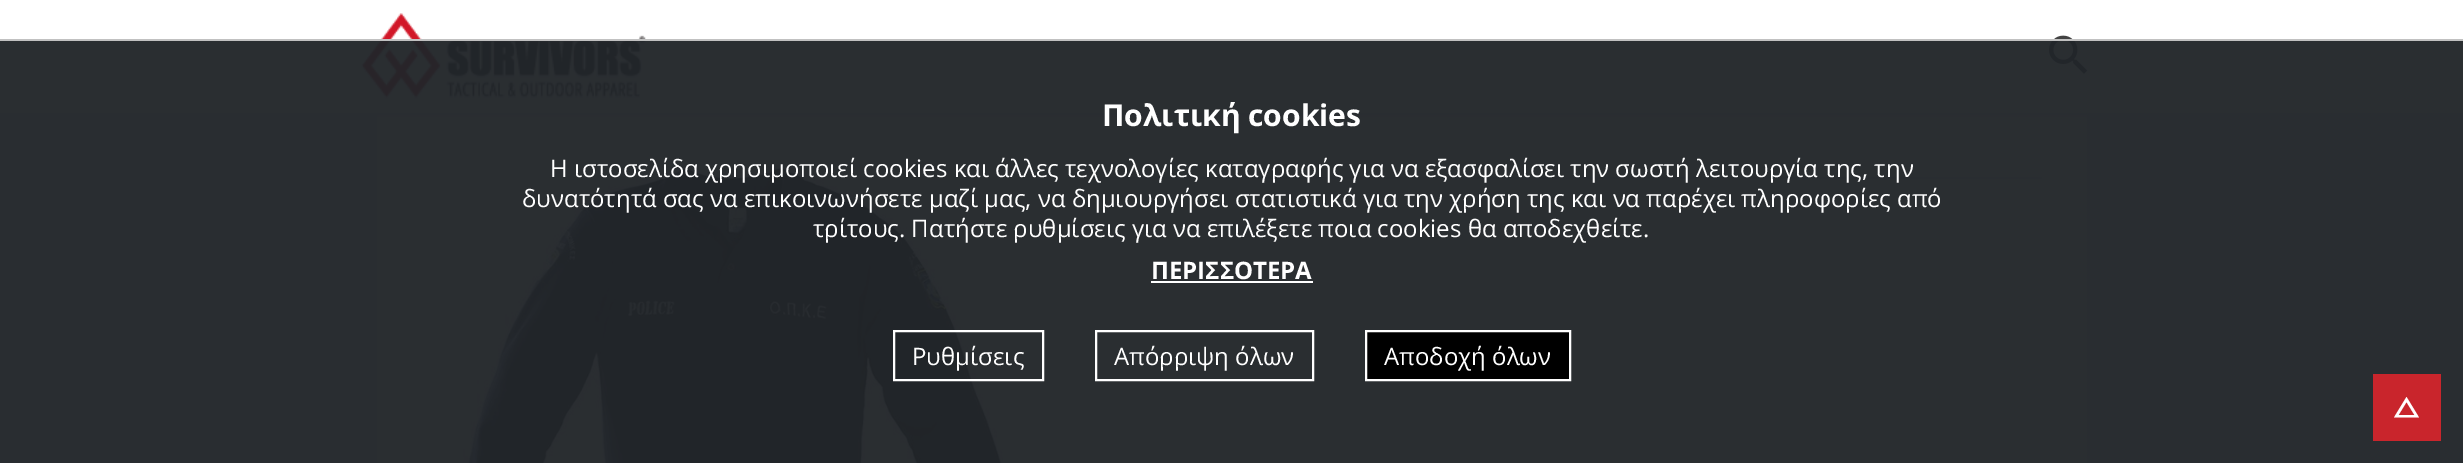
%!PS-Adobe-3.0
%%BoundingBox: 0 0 2463 463
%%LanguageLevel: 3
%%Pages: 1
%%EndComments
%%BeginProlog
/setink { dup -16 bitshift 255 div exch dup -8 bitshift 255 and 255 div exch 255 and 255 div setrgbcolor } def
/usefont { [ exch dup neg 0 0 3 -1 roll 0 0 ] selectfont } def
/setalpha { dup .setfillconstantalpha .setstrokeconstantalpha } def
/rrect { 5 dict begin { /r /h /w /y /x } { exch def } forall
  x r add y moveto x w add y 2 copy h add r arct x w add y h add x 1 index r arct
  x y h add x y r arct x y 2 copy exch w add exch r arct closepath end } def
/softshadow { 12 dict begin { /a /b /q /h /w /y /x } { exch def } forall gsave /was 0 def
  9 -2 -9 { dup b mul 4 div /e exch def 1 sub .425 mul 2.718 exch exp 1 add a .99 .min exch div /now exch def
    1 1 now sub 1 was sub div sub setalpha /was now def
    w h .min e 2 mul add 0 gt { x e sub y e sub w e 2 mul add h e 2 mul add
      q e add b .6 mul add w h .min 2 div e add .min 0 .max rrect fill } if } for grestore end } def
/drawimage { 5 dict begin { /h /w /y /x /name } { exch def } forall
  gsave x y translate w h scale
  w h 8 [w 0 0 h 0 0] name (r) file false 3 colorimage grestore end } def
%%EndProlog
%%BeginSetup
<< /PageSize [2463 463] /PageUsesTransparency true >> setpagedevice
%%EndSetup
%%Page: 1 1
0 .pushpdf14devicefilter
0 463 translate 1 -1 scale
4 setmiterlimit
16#F6F6F6 setink
0 0 2463 463 rectfill
16#FFFFFF setink
377 113 1710 350 rectfill
16#555555 setink
15 26 2433 82 0 4 1 softshadow
16#FFFFFF setink
0 0 2463 113 rectfill
(img1.raw) 361 13 285 86 drawimage
(img2.raw) 2049 35 39 39 drawimage
16#C1C1C1 setink
0 39 2463 2 rectfill
(img3.raw) 463 158 540 305 drawimage
16#EEEEEE setink
1091 177 951 2 rectfill
0.96 setalpha
16#212529 setink
0 41 2463 422 rectfill
/OpenSans-Bold 30 usefont
1 setalpha
16#FFFFFF setink
1102 126 moveto (Πολιτική cookies) show
/OpenSans-Regular 24 usefont
[
    [(Η ιστοσελίδα χρησιμοποιεί cookies και άλλες τεχνολογίες καταγραφής για να εξασφαλίσει την σωστή λειτουργία της, την) 550 177]
    [(δυνατότητά σας να επικοινωνήσετε μαζί μας, να δημιουργήσει στατιστικά για την χρήση της και να παρέχει πληροφορίες από) 522 207]
    [(τρίτους. Πατήστε ρυθμίσεις για να επιλέξετε ποια cookies θα αποδεχθείτε.) 813 237]
] { aload pop moveto show } forall
/OpenSans-Bold 24 usefont
1151 279 moveto (ΠΕΡΙΣΣΟΤΕΡΑ) show
1151 281 162 2 rectfill
2 setlinewidth
894 331 149 49 rectstroke
/OpenSans-Regular 24 usefont
912 365 moveto (Ρυθμίσεις) show
1096 331 217 49 rectstroke
1114 365 moveto (Απόρριψη όλων) show
16#000000 setink
1366 331 moveto 1570 331 lineto 1570 380 lineto 1366 380 lineto closepath gsave fill grestore
16#FFFFFF setink
stroke
1384 365 moveto (Αποδοχή όλων) show
16#C9252C setink
2373 374 68 67 rectfill
16#FFFFFF setink
2406.5 402 moveto 2398.5 415 lineto 2414.5 415 lineto closepath 2406.5 397 moveto 2419 417.5 lineto 2394 417.5 lineto closepath fill
.poppdf14devicefilter showpage
%%EOF
